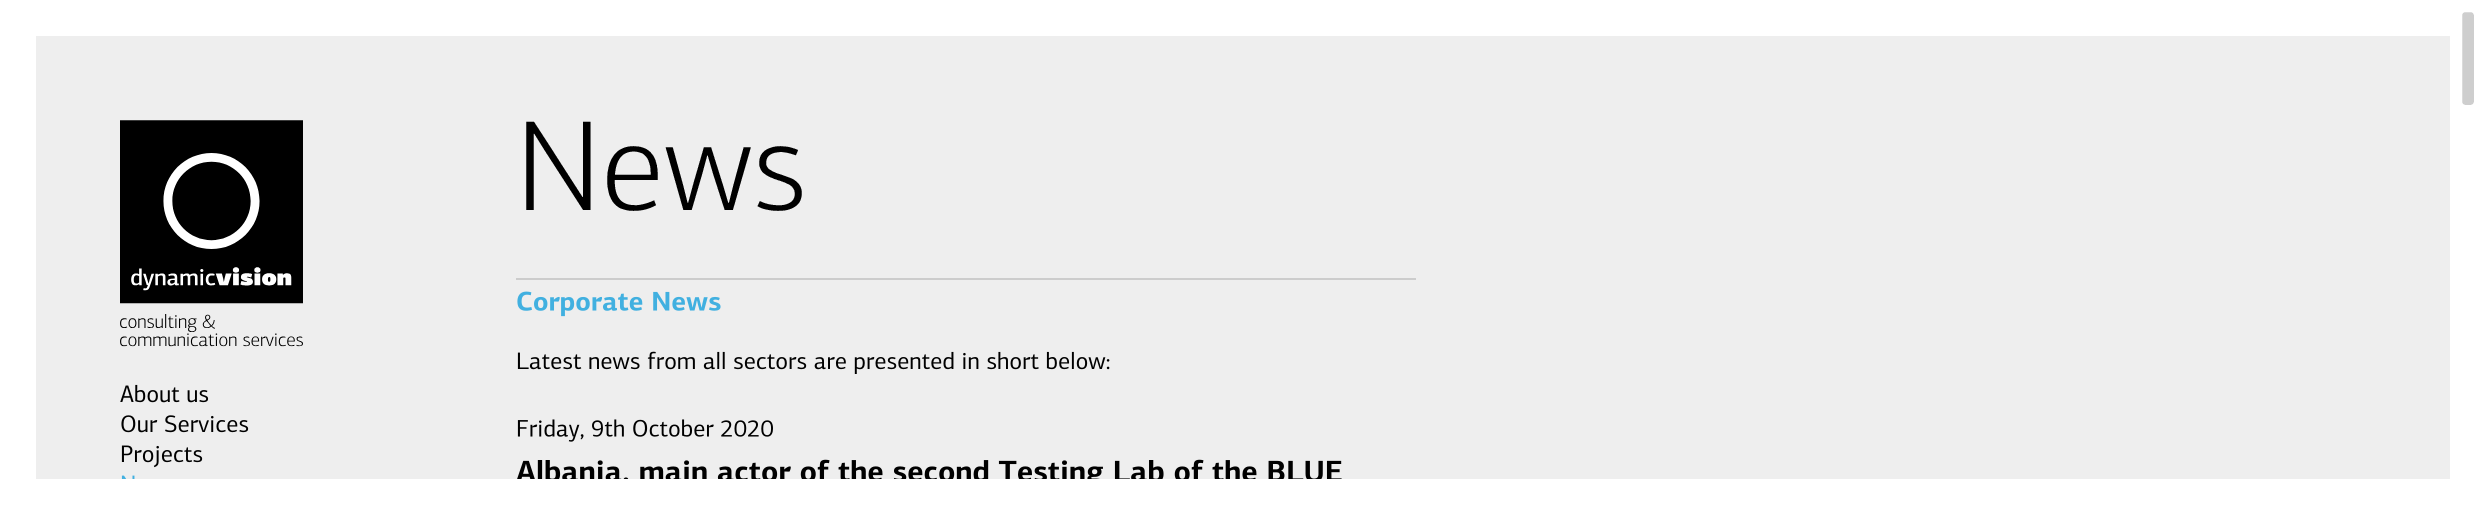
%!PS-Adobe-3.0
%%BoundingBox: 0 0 2485 514
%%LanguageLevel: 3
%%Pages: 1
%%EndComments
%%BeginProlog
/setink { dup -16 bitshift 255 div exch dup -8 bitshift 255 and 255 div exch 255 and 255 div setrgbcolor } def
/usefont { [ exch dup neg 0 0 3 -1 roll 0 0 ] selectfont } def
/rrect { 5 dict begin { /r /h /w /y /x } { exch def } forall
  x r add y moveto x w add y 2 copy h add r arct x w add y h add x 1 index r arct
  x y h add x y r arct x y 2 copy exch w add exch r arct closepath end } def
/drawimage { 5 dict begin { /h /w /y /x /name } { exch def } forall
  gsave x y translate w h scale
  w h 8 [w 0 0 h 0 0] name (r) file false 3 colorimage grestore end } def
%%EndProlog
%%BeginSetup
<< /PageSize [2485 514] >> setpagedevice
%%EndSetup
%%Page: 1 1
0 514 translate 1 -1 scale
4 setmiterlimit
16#EEEEEE setink
0 0 2485 514 rectfill
[
    [0 0 2485 36 16#FFFFFF]
    [0 36 36 443 16#FFFFFF]
    [2450 102 35 377 16#FFFFFF]
] { aload pop setink rectfill } forall
16#CECECE setink
2456 6 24 105 9 rrect gsave fill grestore
16#FFFFFF setink
12 setlinewidth
stroke
(img1.raw) 120 120 183 227 drawimage
(img2.raw) 120 384 89 19 drawimage
(img3.raw) 121 415 128 18 drawimage
(img4.raw) 121 445 82 23 drawimage
(img5.raw) 121 475 14 4 drawimage
/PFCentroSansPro-Light 129 usefont
16#000000 setink
516 210 moveto (News) show
16#CCCCCC setink
516 278 900 2 rectfill
(img6.raw) 517 291 204 26 drawimage
(img7.raw) 517 351 593 23 drawimage
(img8.raw) 517 419 67 23 drawimage
(img9.raw) 592 419 181 18 drawimage
(img10.raw) 517 459 825 20 drawimage
16#FFFFFF setink
0 479 2485 35 rectfill
showpage
%%EOF
